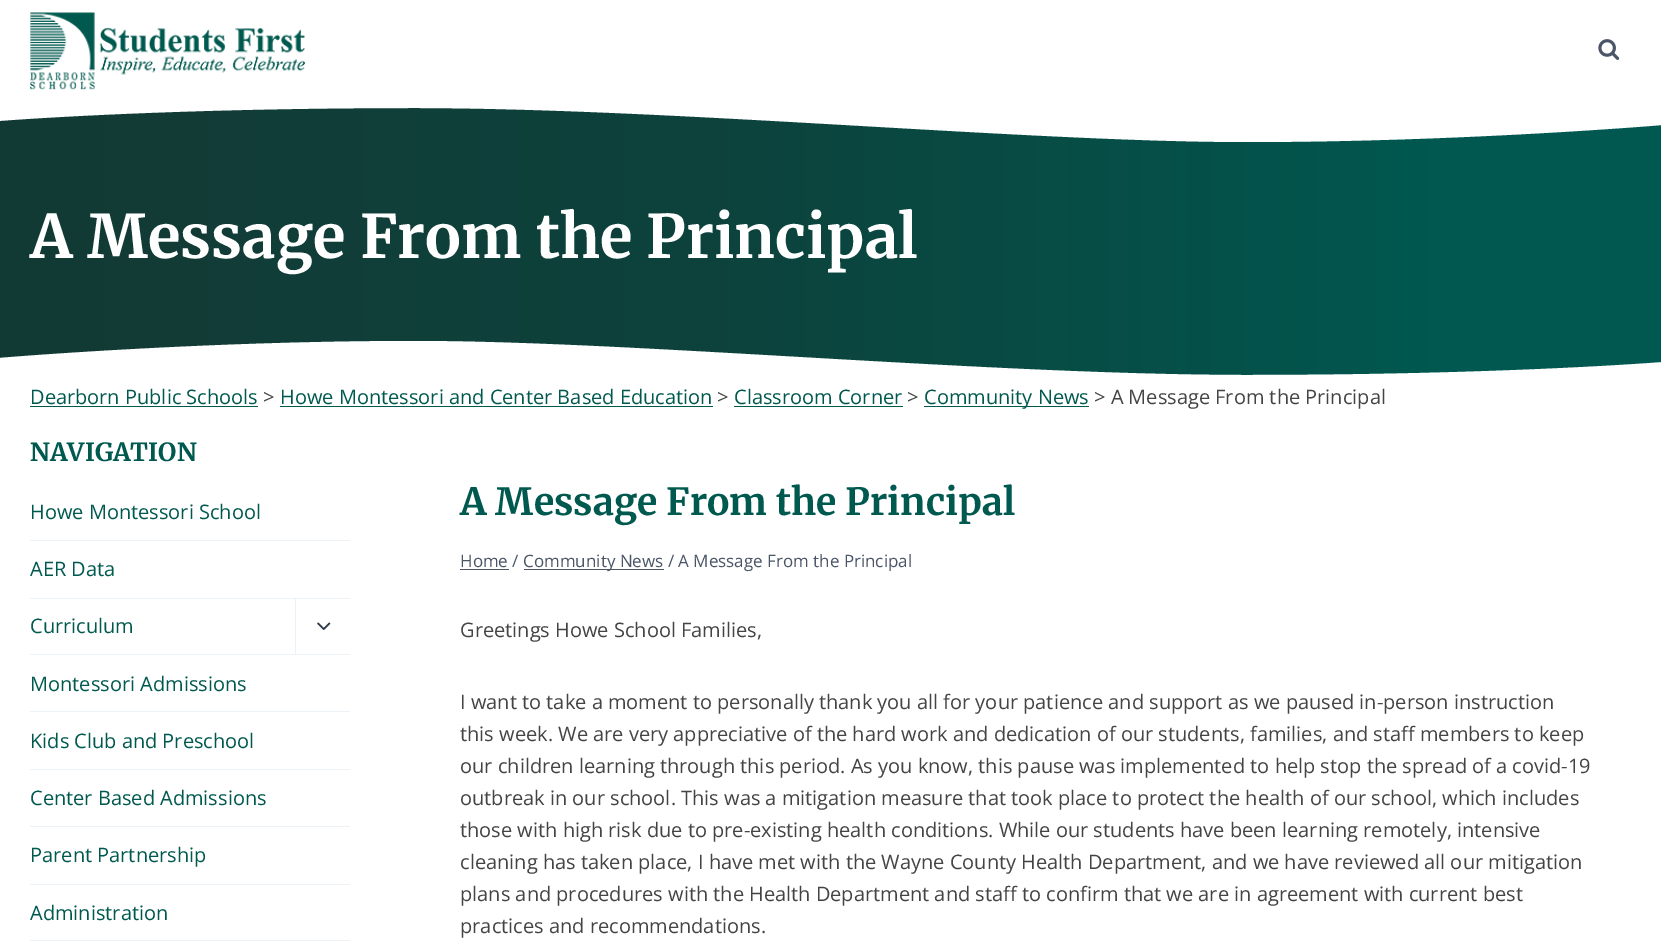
%!PS-Adobe-3.0
%%BoundingBox: 0 0 1661 950
%%LanguageLevel: 3
%%Pages: 1
%%EndComments
%%BeginProlog
/setink { dup -16 bitshift 255 div exch dup -8 bitshift 255 and 255 div exch 255 and 255 div setrgbcolor } def
/usefont { [ exch dup neg 0 0 3 -1 roll 0 0 ] selectfont } def
/drawimage { 5 dict begin { /h /w /y /x /name } { exch def } forall
  gsave x y translate w h scale
  w h 8 [w 0 0 h 0 0] name (r) file false 3 colorimage grestore end } def
%%EndProlog
%%BeginSetup
<< /PageSize [1661 950] >> setpagedevice
%%EndSetup
%%Page: 1 1
0 950 translate 1 -1 scale
4 setmiterlimit
16#FFFFFF setink
0 0 1661 950 rectfill
(img1.raw) 30 12 275 78 drawimage
(img2.raw) 1598 39 22 21 drawimage
gsave 0 108 moveto 1661 108 lineto 1661 375 lineto 0 375 lineto closepath clip newpath
<< /ShadingType 2 /ColorSpace /DeviceRGB /Coords [0 242 1661 242] /Extend [true true] /Function << /FunctionType 3 /Domain [0 1] /Functions [<< /FunctionType 2 /Domain [0 1] /C0 [0.075 0.227 0.208] /C1 [0.067 0.239 0.22] /N 1 >> << /FunctionType 2 /Domain [0 1] /C0 [0.067 0.239 0.22] /C1 [0.051 0.263 0.239] /N 1 >> << /FunctionType 2 /Domain [0 1] /C0 [0.051 0.263 0.239] /C1 [0 0.345 0.314] /N 1 >> << /FunctionType 2 /Domain [0 1] /C0 [0 0.345 0.314] /C1 [0 0.345 0.314] /N 1 >>] /Bounds [0.18 0.45 0.87] /Encode [0 1 0 1 0 1 0 1] >> >> shfill grestore
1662 125 moveto 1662 125 1462 142 1246 142 curveto 1030 142 672 108 414 108 curveto 156 108 -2 121 -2 121 curveto -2 99 lineto 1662 99 lineto closepath fill
/Merriweather-Light 60 usefont
30 258 moveto (A Message From the Principal) show
-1 358 moveto -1 358 199 341 415 341 curveto 631 341 990 375 1247 375 curveto 1505 375 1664 362 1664 362 curveto 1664 384 lineto -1 384 lineto closepath fill
/OpenSans-Regular 20 usefont
16#00594F setink
30 404 moveto (Dearborn Public Schools) show
30 406 228 1 rectfill
16#444444 setink
263 404 moveto (>) show
16#00594F setink
280 404 moveto (Howe Montessori and Center Based Education) show
280 406 433 1 rectfill
16#444444 setink
717 404 moveto (>) show
16#00594F setink
734 404 moveto (Classroom Corner) show
734 406 169 1 rectfill
16#444444 setink
907 404 moveto (>) show
16#00594F setink
924 406 165 1 rectfill
924 404 moveto (Community News) show
16#444444 setink
1094 404 moveto (> A Message From the Principal) show
/Merriweather-Light 25 usefont
16#00594F setink
30 461 moveto (NAVIGATION) show
16#EDF2F7 setink
30 540 320 1 rectfill
/OpenSans-Regular 20 usefont
16#00594F setink
30 519 moveto (Howe Montessori School) show
16#EDF2F7 setink
30 598 320 1 rectfill
16#00594F setink
30 576 moveto (AER Data) show
16#EDF2F7 setink
30 654 320 1 rectfill
16#00594F setink
30 633 moveto (Curriculum) show
16#EDF2F7 setink
295 599 1 56 rectfill
(img3.raw) 317 622 14 8 drawimage
30 711 320 1 rectfill
16#00594F setink
30 691 moveto (Montessori Admissions) show
16#EDF2F7 setink
30 769 320 1 rectfill
16#00594F setink
30 748 moveto (Kids Club and Preschool) show
16#EDF2F7 setink
30 826 320 1 rectfill
16#00594F setink
30 805 moveto (Center Based Admissions) show
16#EDF2F7 setink
30 884 320 1 rectfill
16#00594F setink
30 862 moveto (Parent Partnership) show
16#EDF2F7 setink
30 940 320 1 rectfill
16#00594F setink
30 920 moveto (Administration) show
/Merriweather-Light 37.5 usefont
460 515 moveto (A Message From the Principal) show
/OpenSans-Regular 17 usefont
16#4A5568 setink
460 567 moveto (Home /) show
460 569 49 1 rectfill
524 569 140 1 rectfill
523 567 moveto (Community News / A Message From the Principal) show
/OpenSans-Regular 20 usefont
16#444444 setink
[
    [(Greetings Howe School Families,) 460 637]
    [(I want to take a moment to personally thank you all for your patience and support as we paused in-person instruction) 460 709]
    [(this week. We are very appreciative of the hard work and dedication of our students, families, and staff members to keep) 460 741]
    [(our children learning through this period. As you know, this pause was implemented to help stop the spread of a covid-19) 460 773]
    [(outbreak in our school. This was a mitigation measure that took place to protect the health of our school, which includes) 460 805]
    [(those with high risk due to pre-existing health conditions. While our students have been learning remotely, intensive) 460 837]
    [(cleaning has taken place, I have met with the Wayne County Health Department, and we have reviewed all our mitigation) 460 869]
    [(plans and procedures with the Health Department and staff to confirm that we are in agreement with current best) 460 901]
    [(practices and recommendations.) 460 933]
] { aload pop moveto show } forall
showpage
%%EOF
